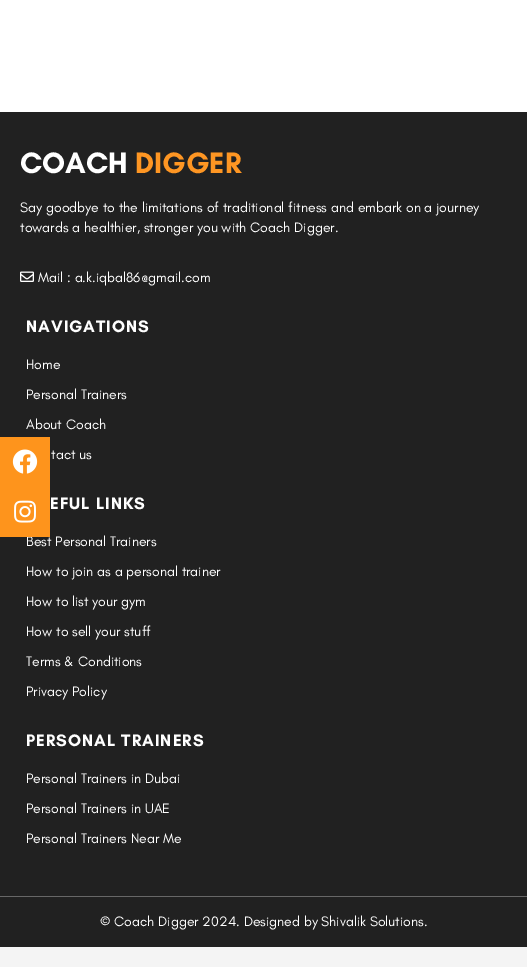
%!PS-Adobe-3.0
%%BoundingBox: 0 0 527 967
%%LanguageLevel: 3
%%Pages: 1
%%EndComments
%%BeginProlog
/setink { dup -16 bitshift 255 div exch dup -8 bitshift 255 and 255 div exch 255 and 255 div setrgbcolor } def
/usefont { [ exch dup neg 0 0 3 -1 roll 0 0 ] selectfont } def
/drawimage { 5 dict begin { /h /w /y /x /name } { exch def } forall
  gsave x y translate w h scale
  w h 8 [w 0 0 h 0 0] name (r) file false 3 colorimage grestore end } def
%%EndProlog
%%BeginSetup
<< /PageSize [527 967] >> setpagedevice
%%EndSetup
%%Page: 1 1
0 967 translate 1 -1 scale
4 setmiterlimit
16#F4F4F4 setink
0 0 527 967 rectfill
16#FFFFFF setink
0 0 527 112 rectfill
16#212121 setink
0 112 527 784 rectfill
/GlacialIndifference-Bold 30 usefont
16#FFFFFF setink
20 173 moveto (COACH) show
16#FE9623 setink
135 173 moveto (DIGGER) show
/GlacialIndifference-Regular 14 usefont
16#FFFFFF setink
20 212 moveto (Say goodbye to the limitations of traditional fitness and embark on a journey) show
20 232 moveto (towards a healthier, stronger you with Coach Digger.) show
(img1.raw) 20 271 14 11 drawimage
38 282 moveto (Mail : a.k.iqbal86@gmail.com) show
/GlacialIndifference-Bold 17 usefont
26 332 moveto 1 0 (NAVIGATIONS) ashow
/GlacialIndifference-Regular 14 usefont
[
    [(Home) 26 369]
    [(Personal Trainers) 26 399]
    [(About Coach) 26 429]
    [(tact us) 51 459]
] { aload pop moveto show } forall
/GlacialIndifference-Bold 17 usefont
50 509 moveto 1 0 (EFUL LINKS) ashow
/GlacialIndifference-Regular 14 usefont
[
    [(Best Personal Trainers) 26 546]
    [(How to join as a personal trainer) 26 576]
    [(How to list your gym) 26 606]
    [(How to sell your stuff) 26 636]
    [(Terms & Conditions) 26 666]
    [(Privacy Policy) 26 696]
] { aload pop moveto show } forall
/GlacialIndifference-Bold 17 usefont
26 746 moveto 1 0 (PERSONAL TRAINERS) ashow
/GlacialIndifference-Regular 14 usefont
[
    [(Personal Trainers in Dubai) 26 783]
    [(Personal Trainers in UAE) 26 813]
    [(Personal Trainers Near Me) 26 843]
] { aload pop moveto show } forall
16#FE941C setink
0 437 50 100 rectfill
(img2.raw) 12 449 26 25 drawimage
(img3.raw) 14 500 22 23 drawimage
16#212121 setink
0 897 527 50 rectfill
16#676767 setink
0 896 527 1 rectfill
16#FFFFFF setink
100 926 moveto (© Coach Digger 2024. Designed by Shivalik Solutions.) show
showpage
%%EOF
